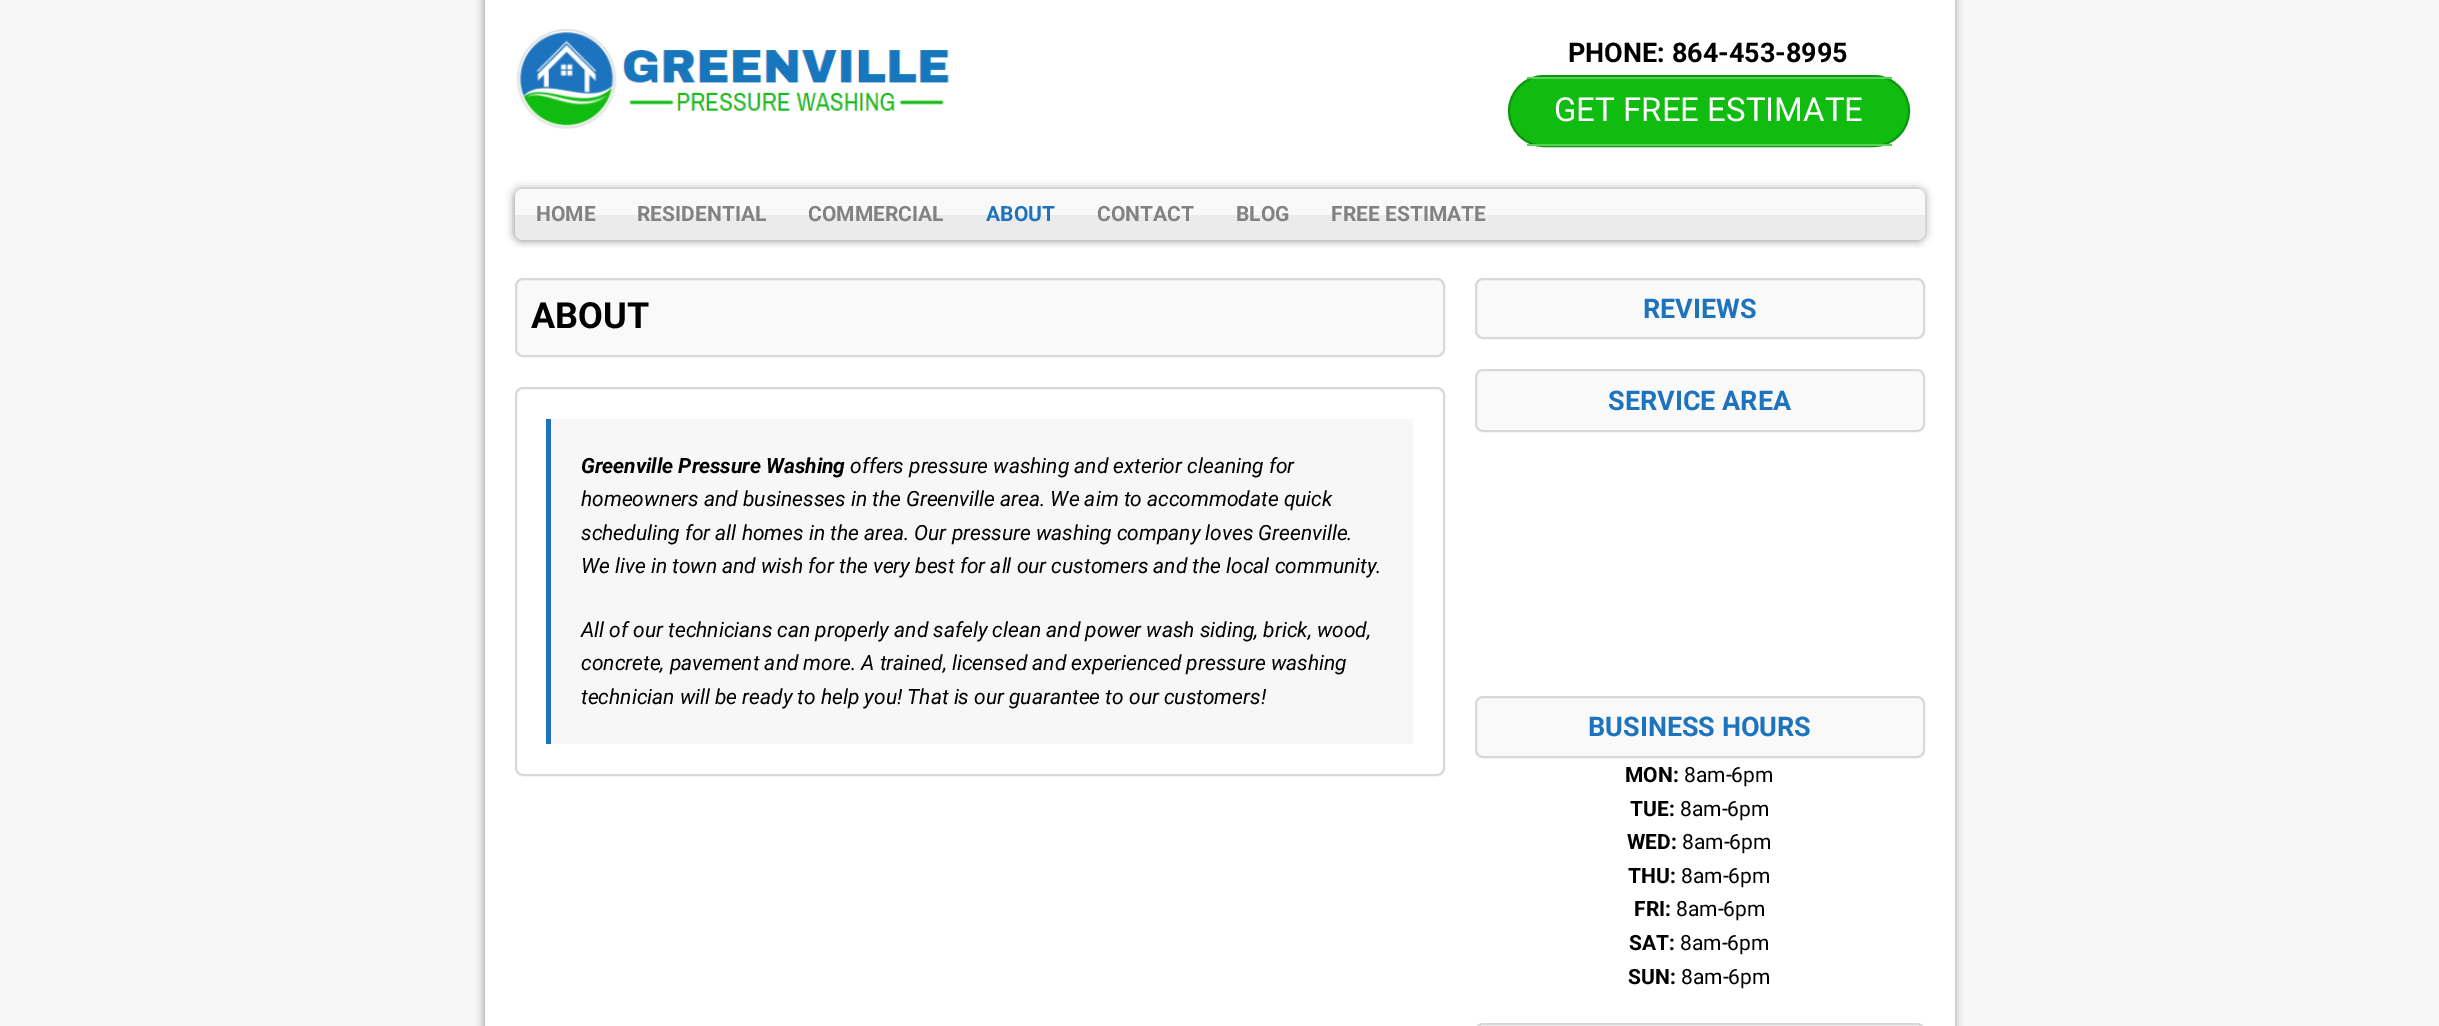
%!PS-Adobe-3.0
%%BoundingBox: 0 0 2439 1026
%%LanguageLevel: 3
%%Pages: 1
%%EndComments
%%BeginProlog
/setink { dup -16 bitshift 255 div exch dup -8 bitshift 255 and 255 div exch 255 and 255 div setrgbcolor } def
/usefont { [ exch dup neg 0 0 3 -1 roll 0 0 ] selectfont } def
/setalpha { dup .setfillconstantalpha .setstrokeconstantalpha } def
/rrect { 5 dict begin { /r /h /w /y /x } { exch def } forall
  x r add y moveto x w add y 2 copy h add r arct x w add y h add x 1 index r arct
  x y h add x y r arct x y 2 copy exch w add exch r arct closepath end } def
/softshadow { 12 dict begin { /a /b /q /h /w /y /x } { exch def } forall gsave /was 0 def
  9 -2 -9 { dup b mul 4 div /e exch def 1 sub .425 mul 2.718 exch exp 1 add a .99 .min exch div /now exch def
    1 1 now sub 1 was sub div sub setalpha /was now def
    w h .min e 2 mul add 0 gt { x e sub y e sub w e 2 mul add h e 2 mul add
      q e add b .6 mul add w h .min 2 div e add .min 0 .max rrect fill } if } for grestore end } def
/drawimage { 5 dict begin { /h /w /y /x /name } { exch def } forall
  gsave x y translate w h scale
  w h 8 [w 0 0 h 0 0] name (r) file false 3 colorimage grestore end } def
%%EndProlog
%%BeginSetup
<< /PageSize [2439 1026] /PageUsesTransparency true >> setpagedevice
%%EndSetup
%%Page: 1 1
0 .pushpdf14devicefilter
0 1026 translate 1 -1 scale
4 setmiterlimit
16#F7F7F7 setink
0 0 2439 1026 rectfill
16#A8A8A8 setink
483 -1 1473 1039 0 4 1 softshadow
16#FFFFFF setink
485 0 1470 248 rectfill
(img1.raw) 516 29 433 100 drawimage
/Roboto-Bold 27 usefont
16#000000 setink
1568 62 moveto (PHONE: 864-453-8995) show
16#10BC10 setink
1509 76 400 70 35 rrect gsave fill grestore
16#0D970D setink
2 setlinewidth
stroke
16#58D158 setink
1527 77 365 2 rectfill
1527 144 365 2 rectfill
/Roboto-Regular 33 usefont
16#FFFFFF setink
1554 121 moveto (GET FREE ESTIMATE) show
16#A8A8A8 setink
513 188 1413 54 9 4 1 softshadow
16#F9F9F9 setink
523 189 moveto 1917 189 lineto 1921.5 189 1925 192.5 1925 197 curveto 1925 215 lineto 515 215 lineto 515 197 lineto 515 192.5 518.5 189 523 189 curveto closepath fill
16#EBEBEB setink
515 215 moveto 1925 215 lineto 1925 232 lineto 1925 236.5 1921.5 240 1917 240 curveto 523 240 lineto 518.5 240 515 236.5 515 232 curveto closepath fill
/Roboto-Bold 21 usefont
16#828282 setink
[
    [(HOME) 536 221]
    [(RESIDENTIAL) 637 221]
    [(COMMERCIAL) 808 221]
] { aload pop moveto show } forall
16#1E73BE setink
986 221 moveto (ABOUT) show
16#828282 setink
[
    [(CONTACT) 1097 221]
    [(BLOG) 1236 221]
    [(FREE ESTIMATE) 1331 221]
] { aload pop moveto show } forall
16#FFFFFF setink
485 248 1470 778 rectfill
16#F9F9F9 setink
516 279 928 77 7 rrect gsave fill grestore
16#D8D8D8 setink
stroke
/Roboto-Bold 36 usefont
16#000000 setink
531 328 moveto (ABOUT) show
16#D8D8D8 setink
516 388 928 387 7 rrect stroke
16#F7F7F7 setink
551 419 862 325 rectfill
16#1E73BE setink
546 419 5 325 rectfill
/Roboto-BoldItalic 21 usefont
16#000000 setink
581 473 moveto (Greenville Pressure Washing) show
/Roboto-Italic 21 usefont
[
    [(offers pressure washing and exterior cleaning for) 850 473]
    [(homeowners and businesses in the Greenville area. We aim to accommodate quick) 581 506]
    [(scheduling for all homes in the area. Our pressure washing company loves Greenville.) 581 540]
    [(We live in town and wish for the very best for all our customers and the local community.) 581 573]
    [(All of our technicians can properly and safely clean and power wash siding, brick, wood,) 581 637]
    [(concrete, pavement and more. A trained, licensed and experienced pressure washing) 581 670]
    [(technician will be ready to help you! That is our guarantee to our customers!) 581 704]
] { aload pop moveto show } forall
16#F9F9F9 setink
1476 279 448 59 7 rrect gsave fill grestore
16#D8D8D8 setink
stroke
/Roboto-Bold 27 usefont
16#1E73BE setink
1643 318 moveto (REVIEWS) show
16#F9F9F9 setink
1476 370 448 61 7 rrect gsave fill grestore
16#D8D8D8 setink
stroke
16#1E73BE setink
1608 410 moveto (SERVICE AREA) show
16#F9F9F9 setink
1476 697 448 60 7 rrect gsave fill grestore
16#D8D8D8 setink
stroke
16#1E73BE setink
1588 736 moveto (BUSINESS HOURS) show
/Roboto-Bold 21 usefont
16#000000 setink
1625 782 moveto (MON:) show
/Roboto-Regular 21 usefont
1684 782 moveto (8am-6pm) show
/Roboto-Bold 21 usefont
1630 816 moveto (TUE:) show
/Roboto-Regular 21 usefont
1680 816 moveto (8am-6pm) show
/Roboto-Bold 21 usefont
1627 849 moveto (WED:) show
/Roboto-Regular 21 usefont
1682 849 moveto (8am-6pm) show
/Roboto-Bold 21 usefont
1628 883 moveto (THU:) show
/Roboto-Regular 21 usefont
1681 883 moveto (8am-6pm) show
/Roboto-Bold 21 usefont
1634 916 moveto (FRI:) show
/Roboto-Regular 21 usefont
1676 916 moveto (8am-6pm) show
/Roboto-Bold 21 usefont
1629 950 moveto (SAT:) show
/Roboto-Regular 21 usefont
1680 950 moveto (8am-6pm) show
/Roboto-Bold 21 usefont
1628 984 moveto (SUN:) show
/Roboto-Regular 21 usefont
1681 984 moveto (8am-6pm) show
16#F9F9F9 setink
1476 1024 448 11 7 rrect gsave fill grestore
16#D8D8D8 setink
stroke
.poppdf14devicefilter showpage
%%EOF
